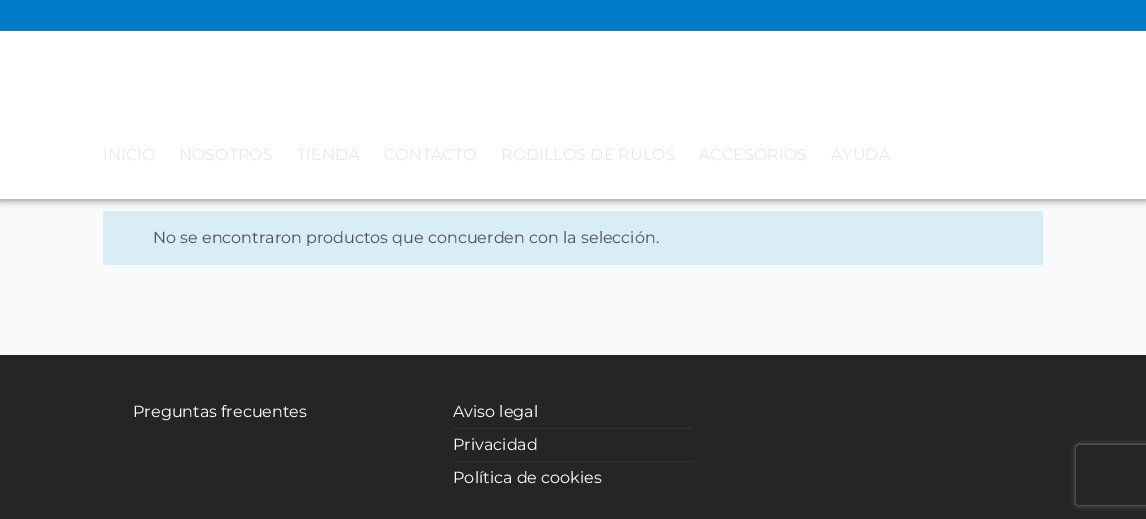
%!PS-Adobe-3.0
%%BoundingBox: 0 0 1146 519
%%LanguageLevel: 3
%%Pages: 1
%%EndComments
%%BeginProlog
/setink { dup -16 bitshift 255 div exch dup -8 bitshift 255 and 255 div exch 255 and 255 div setrgbcolor } def
/usefont { [ exch dup neg 0 0 3 -1 roll 0 0 ] selectfont } def
/setalpha { dup .setfillconstantalpha .setstrokeconstantalpha } def
/rrect { 5 dict begin { /r /h /w /y /x } { exch def } forall
  x r add y moveto x w add y 2 copy h add r arct x w add y h add x 1 index r arct
  x y h add x y r arct x y 2 copy exch w add exch r arct closepath end } def
/softshadow { 12 dict begin { /a /b /q /h /w /y /x } { exch def } forall gsave /was 0 def
  9 -2 -9 { dup b mul 4 div /e exch def 1 sub .425 mul 2.718 exch exp 1 add a .99 .min exch div /now exch def
    1 1 now sub 1 was sub div sub setalpha /was now def
    w h .min e 2 mul add 0 gt { x e sub y e sub w e 2 mul add h e 2 mul add
      q e add b .6 mul add w h .min 2 div e add .min 0 .max rrect fill } if } for grestore end } def
%%EndProlog
%%BeginSetup
<< /PageSize [1146 519] /PageUsesTransparency true >> setpagedevice
%%EndSetup
%%Page: 1 1
0 .pushpdf14devicefilter
0 519 translate 1 -1 scale
4 setmiterlimit
16#252525 setink
0 0 1146 519 rectfill
16#F9FAFA setink
0 199 1146 156 rectfill
16#D9EDF7 setink
103 211 940 54 rectfill
16#000000 setink
0 0 1146 200 0 4 0.5 softshadow
16#007BC9 setink
0 0 1146 31 rectfill
16#FFFFFF setink
0 31 1146 168 rectfill
/Montserrat-Thin 16 usefont
16#E9E9E9 setink
[
    [(INICIO) 103 160]
    [(NOSOTROS) 179 160]
    [(TIENDA) 297 160]
    [(CONTACTO) 384 160]
    [(RODILLOS DE RULOS) 501 160]
    [(ACCESORIOS) 699 160]
    [(AYUDA) 831 160]
] { aload pop moveto show } forall
16#515151 setink
153 243 moveto (No se encontraron productos que concuerden con la selección.) show
16#FFFFFF setink
133 417 moveto (Preguntas frecuentes) show
453 417 moveto (Aviso legal) show
16#333333 setink
453 428 240 1 rectfill
16#FFFFFF setink
453 450 moveto (Privacidad) show
16#333333 setink
453 461 240 1 rectfill
16#FFFFFF setink
453 483 moveto (Política de cookies) show
gsave
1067 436 moveto 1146 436 lineto 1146 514 lineto 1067 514 lineto closepath 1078 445 moveto 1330 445 lineto 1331 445 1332 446 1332 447 curveto 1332 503 lineto 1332 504 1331 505 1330 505 curveto 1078 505 lineto 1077 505 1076 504 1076 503 curveto 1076 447 lineto 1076 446 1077 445 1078 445 curveto closepath eoclip newpath
16#808080 setink
1076 445 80 60 2 2.5 1 softshadow
grestore
.poppdf14devicefilter showpage
%%EOF
